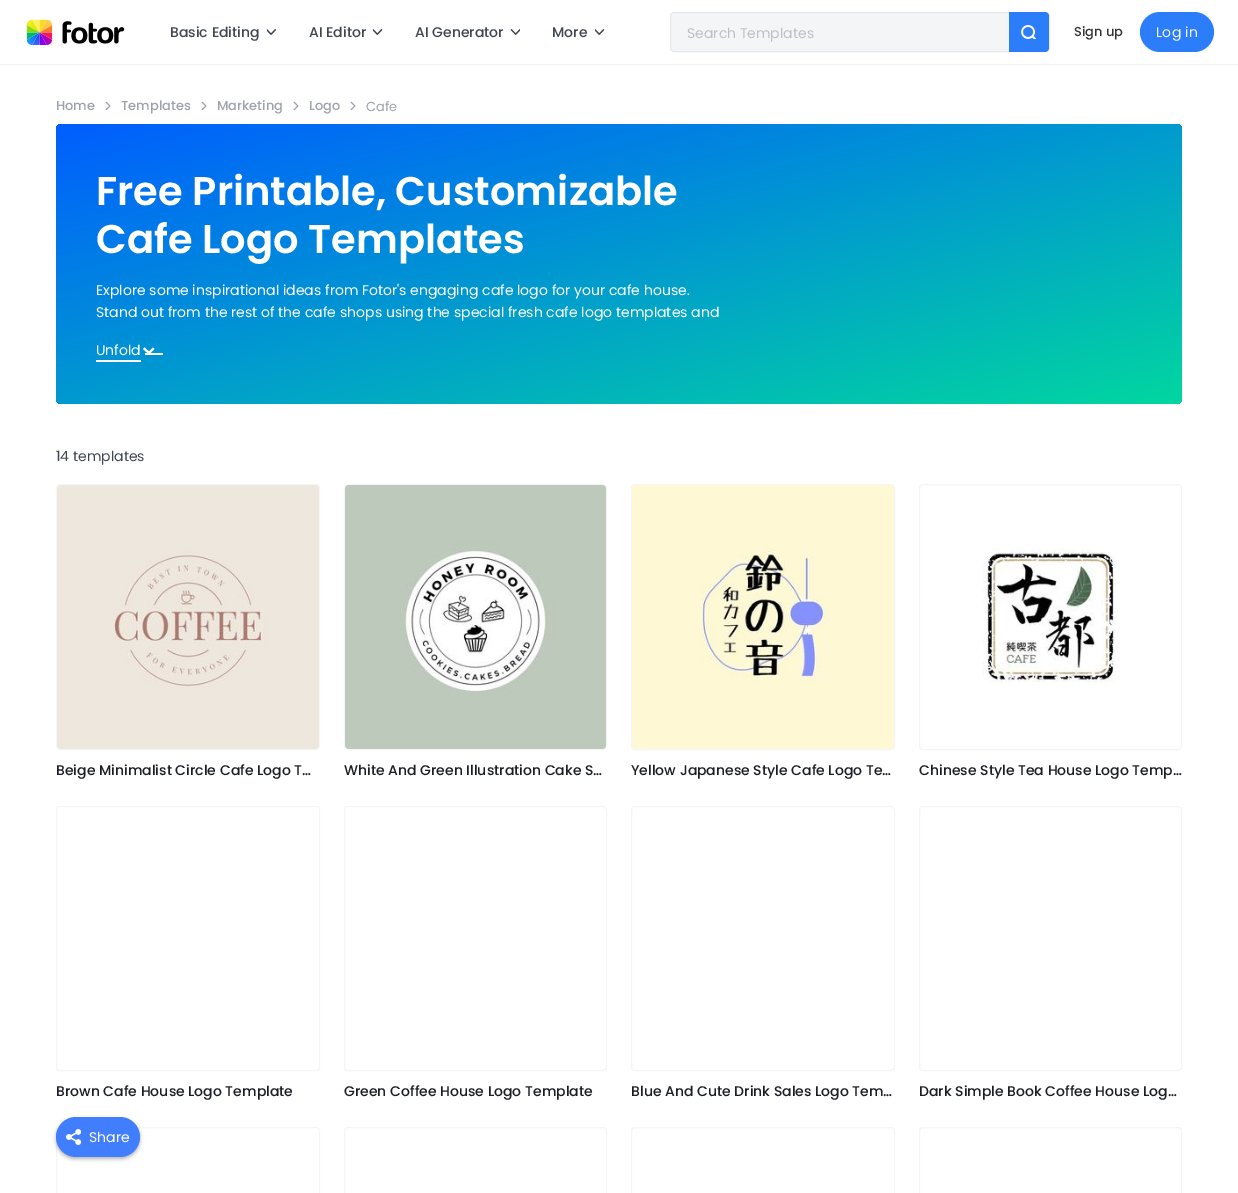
%!PS-Adobe-3.0
%%BoundingBox: 0 0 1238 1193
%%LanguageLevel: 3
%%Pages: 1
%%EndComments
%%BeginProlog
/setink { dup -16 bitshift 255 div exch dup -8 bitshift 255 and 255 div exch 255 and 255 div setrgbcolor } def
/usefont { [ exch dup neg 0 0 3 -1 roll 0 0 ] selectfont } def
/setalpha { dup .setfillconstantalpha .setstrokeconstantalpha } def
/rrect { 5 dict begin { /r /h /w /y /x } { exch def } forall
  x r add y moveto x w add y 2 copy h add r arct x w add y h add x 1 index r arct
  x y h add x y r arct x y 2 copy exch w add exch r arct closepath end } def
/softshadow { 12 dict begin { /a /b /q /h /w /y /x } { exch def } forall gsave /was 0 def
  9 -2 -9 { dup b mul 4 div /e exch def 1 sub .425 mul 2.718 exch exp 1 add a .99 .min exch div /now exch def
    1 1 now sub 1 was sub div sub setalpha /was now def
    w h .min e 2 mul add 0 gt { x e sub y e sub w e 2 mul add h e 2 mul add
      q e add b .6 mul add w h .min 2 div e add .min 0 .max rrect fill } if } for grestore end } def
/drawimage { 5 dict begin { /h /w /y /x /name } { exch def } forall
  gsave x y translate w h scale
  w h 8 [w 0 0 h 0 0] name (r) file false 3 colorimage grestore end } def
%%EndProlog
%%BeginSetup
<< /PageSize [1238 1193] /PageUsesTransparency true >> setpagedevice
%%EndSetup
%%Page: 1 1
0 .pushpdf14devicefilter
0 1193 translate 1 -1 scale
4 setmiterlimit
16#FFFFFF setink
0 0 1238 1193 rectfill
16#F2F2F2 setink
0 64 1238 1 rectfill
(img1.raw) 26 19 99 26 drawimage
/Poppins-Medium 14 usefont
16#414751 setink
170 37 moveto (Basic Editing) show
(img2.raw) 267 29 9 6 drawimage
309 37 moveto (AI Editor) show
(img3.raw) 373 29 10 6 drawimage
415 37 moveto (AI Generator) show
(img4.raw) 510 29 10 6 drawimage
552 37 moveto (More) show
(img5.raw) 595 29 10 6 drawimage
16#F4F5F6 setink
670.5 12.5 379 39 3.5 rrect gsave fill grestore
16#E7E8E9 setink
stroke
/Poppins-Regular 14 usefont
16#BEC0C8 setink
687 38 moveto (Search Templates) show
16#2C7DFA setink
1009 12 moveto 1045 12 lineto 1047 12 1049 14 1049 16 curveto 1049 48 lineto 1049 50 1047 52 1045 52 curveto 1009 52 lineto closepath fill
(img6.raw) 1021 25 15 14 drawimage
/Poppins-Medium 13 usefont
16#343434 setink
1074 36 moveto (Sign up) show
16#2C7DFA setink
1140 12 74 40 20 rrect fill
/Poppins-Regular 14 usefont
16#F4F5F6 setink
1156 37 moveto 0.25 0 (Log in) ashow
/Poppins-Medium 13 usefont
16#9DA2AD setink
56 110 moveto (Home) show
(img7.raw) 105 101 6 10 drawimage
121 110 moveto (Templates) show
(img7.raw) 201 101 6 10 drawimage
217 110 moveto (Marketing) show
(img7.raw) 293 101 6 10 drawimage
309 110 moveto (Logo) show
(img7.raw) 350 101 6 10 drawimage
/Poppins-Regular 13 usefont
366 111 moveto (Cafe) show
gsave 56 124 1126 280 6 rrect clip newpath
<< /ShadingType 2 /ColorSpace /DeviceRGB /Coords [553 0.3 685 528] /Extend [true true] /Function << /FunctionType 2 /Domain [0 1] /C0 [0 0.369 1] /C1 [0.004 0.839 0.627] /N 1 >> >> shfill grestore
/Poppins-SemiBold 40 usefont
16#FFFFFF setink
96 205 moveto (Free Printable, Customizable) show
96 253 moveto (Cafe Logo Templates) show
/Poppins-Regular 14 usefont
96 295 moveto (Explore some inspirational ideas from Fotor's engaging cafe logo for your cafe house.) show
96 317 moveto (Stand out from the rest of the cafe shops using the special fresh cafe logo templates and) show
96 360 45 2 rectfill
145 353 18 2 rectfill
96 355 moveto (Unfold) show
154.5 349 moveto 149 354.5 lineto 147.5 353 lineto 153 347.5 lineto closepath fill
150.5 353 moveto 149 354.5 lineto 143 349 lineto 144.5 347.5 lineto closepath fill
16#414751 setink
56 461 moveto (14 templates) show
16#F4F5F6 setink
56.5 484.5 263 265 3.5 rrect stroke
(img8.raw) 57 485 262 264 drawimage
/Poppins-Medium 14 usefont
16#1B1E24 setink
56 775 moveto (Beige Minimalist Circle Cafe Logo T…) show
16#F4F5F6 setink
344.5 484.5 262 265 3.5 rrect stroke
(img9.raw) 345 485 261 264 drawimage
16#1B1E24 setink
344 775 moveto (White And Green Illustration Cake S…) show
16#F4F5F6 setink
631.5 484.5 263 265 3.5 rrect stroke
(img10.raw) 632 485 262 264 drawimage
16#1B1E24 setink
631 775 moveto (Yellow Japanese Style Cafe Logo Te…) show
16#F4F5F6 setink
919.5 484.5 262 265 3.5 rrect stroke
(img11.raw) 982 548 134 135 drawimage
16#1B1E24 setink
919 775 moveto (Chinese Style Tea House Logo Temp…) show
16#F4F5F6 setink
56.5 806.5 263 264 3.5 rrect stroke
16#1B1E24 setink
56 1096 moveto (Brown Cafe House Logo Template) show
16#F4F5F6 setink
344.5 806.5 262 264 3.5 rrect stroke
16#1B1E24 setink
344 1096 moveto (Green Coffee House Logo Template) show
16#F4F5F6 setink
631.5 806.5 263 264 3.5 rrect stroke
16#1B1E24 setink
631 1096 moveto (Blue And Cute Drink Sales Logo Tem…) show
16#F4F5F6 setink
919.5 806.5 262 264 3.5 rrect stroke
16#1B1E24 setink
919 1096 moveto (Dark Simple Book Coffee House Log…) show
16#F4F5F6 setink
56.5 1127.5 263 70 3.5 rrect stroke
344.5 1127.5 262 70 3.5 rrect stroke
631.5 1127.5 263 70 3.5 rrect stroke
919.5 1127.5 262 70 3.5 rrect stroke
16#000000 setink
56 1119 84 40 20 2 0.3 softshadow
16#407EFE setink
56 1117 84 40 20 rrect fill
(img12.raw) 66 1129 15 16 drawimage
/Poppins-Regular 14 usefont
16#FFFFFF setink
89 1142 moveto (Share) show
.poppdf14devicefilter showpage
%%EOF
